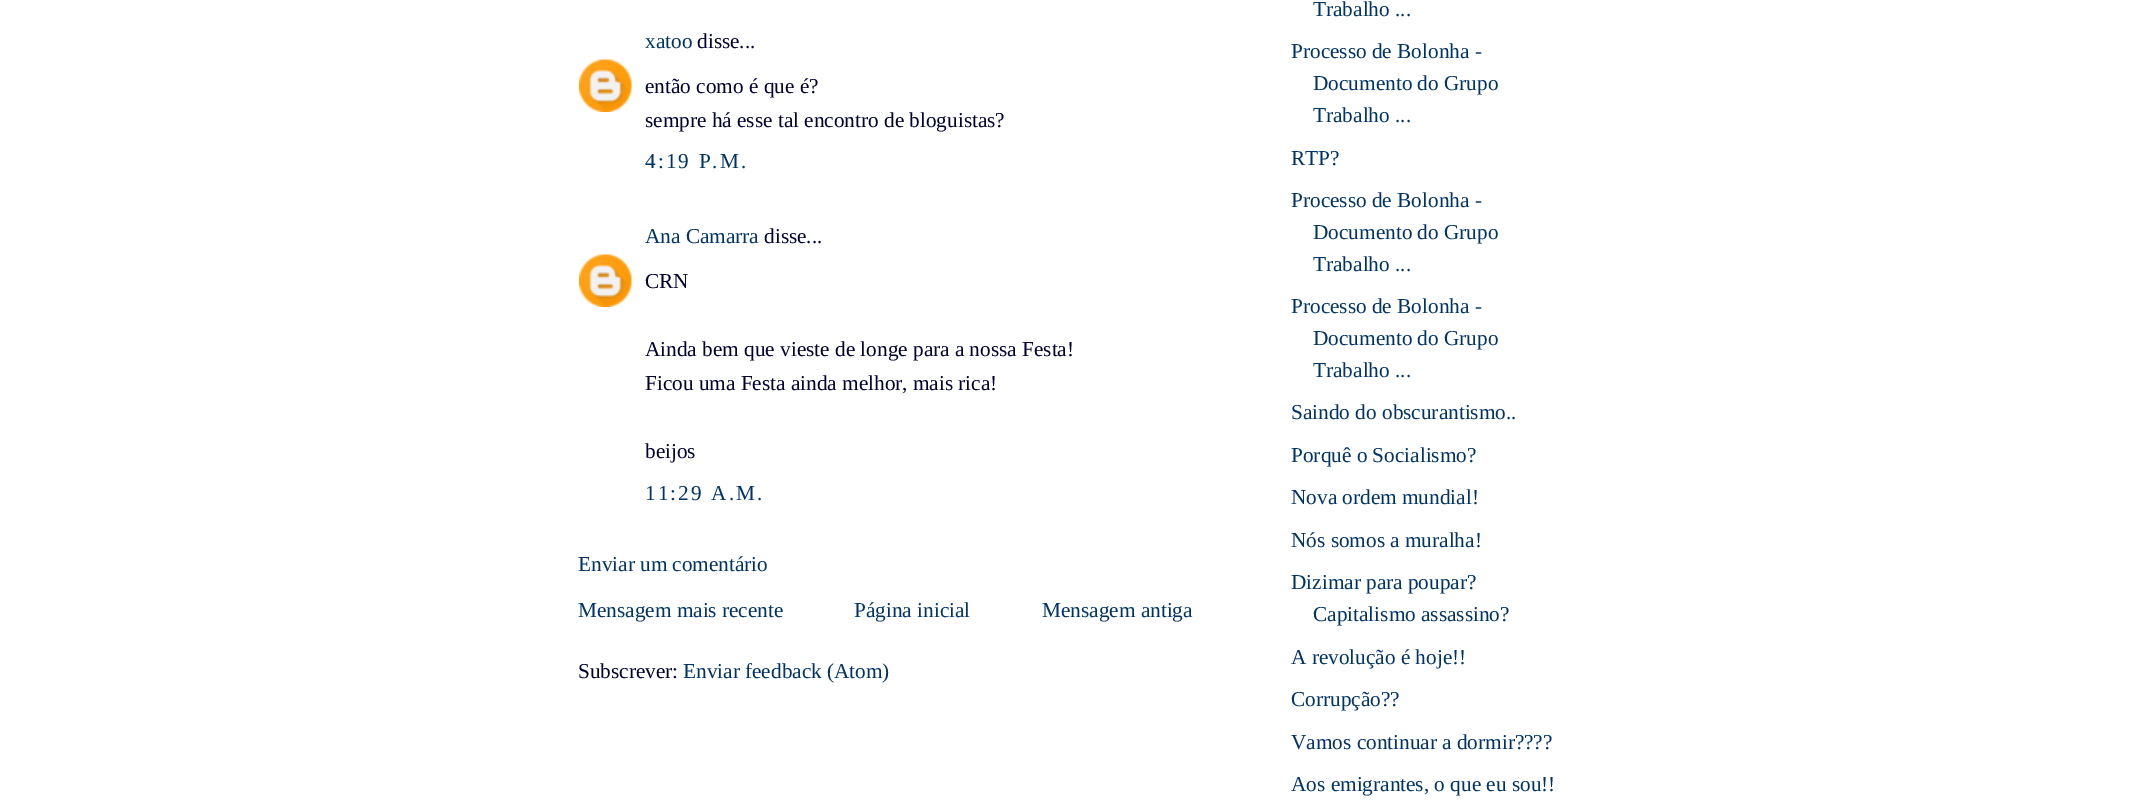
%!PS-Adobe-3.0
%%BoundingBox: 0 0 2145 802
%%LanguageLevel: 3
%%Pages: 1
%%EndComments
%%BeginProlog
/setink { dup -16 bitshift 255 div exch dup -8 bitshift 255 and 255 div exch 255 and 255 div setrgbcolor } def
/usefont { [ exch dup neg 0 0 3 -1 roll 0 0 ] selectfont } def
/drawimage { 5 dict begin { /h /w /y /x /name } { exch def } forall
  gsave x y translate w h scale
  w h 8 [w 0 0 h 0 0] name (r) file false 3 colorimage grestore end } def
%%EndProlog
%%BeginSetup
<< /PageSize [2145 802] >> setpagedevice
%%EndSetup
%%Page: 1 1
0 802 translate 1 -1 scale
4 setmiterlimit
16#FFFFFF setink
0 0 2145 802 rectfill
/LiberationSerif-Regular 21.25 usefont
16#003366 setink
645 48 moveto (xatoo) show
16#000033 setink
697 48 moveto (disse...) show
(img1.raw) 579 59 53 53 drawimage
645 93 moveto (então como é que é?) show
645 127 moveto (sempre há esse tal encontro de bloguistas?) show
16#003366 setink
645 168 moveto 2.1 0 (4:19 P.M.) ashow
645 243 moveto (Ana Camarra) show
16#000033 setink
764 243 moveto (disse...) show
(img1.raw) 579 254 53 53 drawimage
[
    [(CRN) 645 288]
    [(Ainda bem que vieste de longe para a nossa Festa!) 645 356]
    [(Ficou uma Festa ainda melhor, mais rica!) 645 390]
    [(beijos) 645 458]
] { aload pop moveto show } forall
16#003366 setink
645 500 moveto 2.1 0 (11:29 A.M.) ashow
[
    [(Enviar um comentário) 578 571]
    [(Mensagem mais recente) 578 617]
    [(Página inicial) 854 617]
    [(Mensagem antiga) 1042 617]
] { aload pop moveto show } forall
16#000033 setink
578 678 moveto (Subscrever:) show
16#003366 setink
[
    [(Enviar feedback \(Atom\)) 683 678]
    [(Trabalho ...) 1313 16]
    [(Processo de Bolonha -) 1291 58]
    [(Documento do Grupo) 1313 90]
    [(Trabalho ...) 1313 122]
    [(RTP?) 1291 165]
    [(Processo de Bolonha -) 1291 207]
    [(Documento do Grupo) 1313 239]
    [(Trabalho ...) 1313 271]
    [(Processo de Bolonha -) 1291 313]
    [(Documento do Grupo) 1313 345]
    [(Trabalho ...) 1313 377]
    [(Saindo do obscurantismo..) 1291 419]
    [(Porquê o Socialismo?) 1291 462]
    [(Nova ordem mundial!) 1291 504]
    [(Nós somos a muralha!) 1291 547]
    [(Dizimar para poupar?) 1291 589]
    [(Capitalismo assassino?) 1313 621]
    [(A revolução é hoje!!) 1291 664]
    [(Corrupção??) 1291 706]
    [(Vamos continuar a dormir????) 1291 749]
    [(Aos emigrantes, o que eu sou!!) 1291 791]
] { aload pop moveto show } forall
showpage
%%EOF
